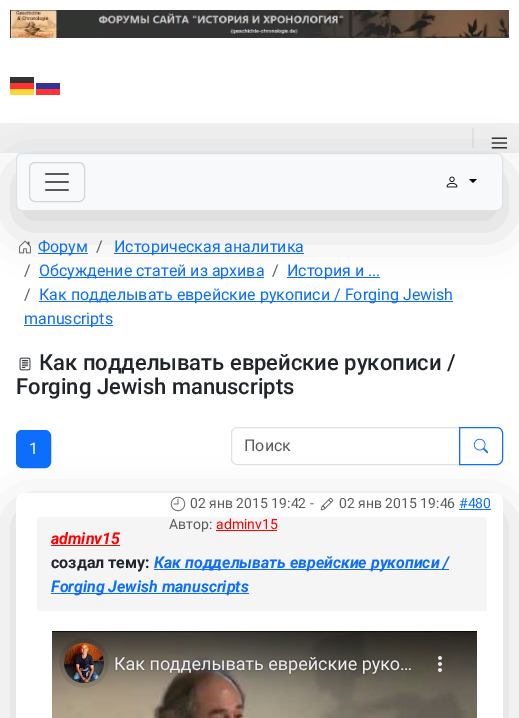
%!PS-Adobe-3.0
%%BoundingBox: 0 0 519 718
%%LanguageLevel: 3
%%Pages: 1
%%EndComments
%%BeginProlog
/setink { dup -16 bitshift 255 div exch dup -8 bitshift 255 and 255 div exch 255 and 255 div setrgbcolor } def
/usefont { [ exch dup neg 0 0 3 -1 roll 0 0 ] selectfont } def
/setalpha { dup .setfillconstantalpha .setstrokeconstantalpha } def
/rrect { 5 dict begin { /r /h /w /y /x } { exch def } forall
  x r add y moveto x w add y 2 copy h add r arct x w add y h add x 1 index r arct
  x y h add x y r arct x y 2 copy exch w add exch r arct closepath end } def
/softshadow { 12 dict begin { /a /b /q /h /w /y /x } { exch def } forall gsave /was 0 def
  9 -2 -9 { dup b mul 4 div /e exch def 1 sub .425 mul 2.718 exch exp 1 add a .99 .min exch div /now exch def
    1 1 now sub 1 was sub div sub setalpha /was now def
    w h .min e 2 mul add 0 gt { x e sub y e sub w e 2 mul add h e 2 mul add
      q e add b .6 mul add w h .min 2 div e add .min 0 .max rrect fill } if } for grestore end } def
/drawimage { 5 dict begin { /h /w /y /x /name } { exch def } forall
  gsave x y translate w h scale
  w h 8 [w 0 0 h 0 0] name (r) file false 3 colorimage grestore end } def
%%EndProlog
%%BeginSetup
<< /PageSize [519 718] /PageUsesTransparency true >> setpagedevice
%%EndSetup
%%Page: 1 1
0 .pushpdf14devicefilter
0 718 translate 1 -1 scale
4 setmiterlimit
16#FFFFFF setink
0 0 519 718 rectfill
(img1.raw) 10 10 499 28 drawimage
[
    [10 77 24 6 16#333333]
    [10 83 24 6 16#FF3333]
    [36 83 24 6 16#343498]
    [10 89 24 6 16#FFD633]
    [36 89 24 6 16#FE3434]
    [0 123 519 30 16#F0F0F0]
    [472 128 2 20 16#E2E2E2]
] { aload pop setink rectfill } forall
/LiberationSerif-Regular 33 usefont
16#333333 setink
490 154 moveto (≡) show
(img4.raw) 19 240 12 14 drawimage
[
    [38 253 50 1 16#0D6EFD]
    [114 253 190 1 16#0D6EFD]
    [39 277 225 1 16#0D6EFD]
    [287 277 93 1 16#0D6EFD]
] { aload pop setink rectfill } forall
16#000000 setink
16 169 487 58 6 24 0.18 softshadow
16#F8F9FA setink
16.5 153.5 486 57 5.5 rrect gsave fill grestore
16#DEE2E6 setink
stroke
16#D3D4D5 setink
29.5 162.5 55 39 5.5 rrect stroke
(img2.raw) 45 173 24 18 drawimage
(img3.raw) 446 176 12 12 drawimage
16#000000 setink
469 179 moveto 477 179 lineto 473 183 lineto closepath fill
/Roboto-Regular 16 usefont
16#0D6EFD setink
38 252 moveto (Форум) show
16#595C5F setink
96 252 moveto (/) show
16#0D6EFD setink
114 252 moveto (Историческая аналитика) show
16#595C5F setink
24 276 moveto (/) show
16#0D6EFD setink
39 276 moveto (Обсуждение статей из архива) show
16#595C5F setink
272 276 moveto (/) show
16#0D6EFD setink
287 276 moveto (История и ...) show
16#595C5F setink
24 300 moveto (/) show
16#0D6EFD setink
39 301 414 1 rectfill
39 300 moveto (Как подделывать еврейские рукописи / Forging Jewish) show
24 325 89 1 rectfill
24 324 moveto (manuscripts) show
(img5.raw) 19 357 12 14 drawimage
/Roboto-Medium 22 usefont
16#212529 setink
39 370 moveto (Как подделывать еврейские рукописи /) show
16 394 moveto (Forging Jewish manuscripts) show
gsave
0 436 moveto 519 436 lineto 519 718 lineto 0 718 lineto closepath 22 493 moveto 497 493 lineto 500.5 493 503 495.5 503 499 curveto 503 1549 lineto 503 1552.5 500.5 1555 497 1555 curveto 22 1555 lineto 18.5 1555 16 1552.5 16 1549 curveto 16 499 lineto 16 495.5 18.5 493 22 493 curveto closepath eoclip newpath
16#000000 setink
16 509 487 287 6 24 0.18 softshadow
grestore
16#0D6EFD setink
16.5 430.5 34 37 5.5 rrect gsave fill grestore
stroke
/Roboto-Regular 16 usefont
16#FFFFFF setink
29 454 moveto (1) show
16#DEE2E6 setink
237 427.5 moveto 459.5 427.5 lineto 459.5 464.5 lineto 237 464.5 lineto 234 464.5 231.5 462 231.5 459 curveto 231.5 433 lineto 231.5 430 234 427.5 237 427.5 curveto closepath stroke
16#595C5F setink
244 451 moveto (Поиск) show
16#0D6EFD setink
459.5 427.5 moveto 497 427.5 lineto 500 427.5 502.5 430 502.5 433 curveto 502.5 459 lineto 502.5 462 500 464.5 497 464.5 curveto 459.5 464.5 lineto closepath stroke
(img6.raw) 473 438 16 16 drawimage
(img7.raw) 170 496 16 16 drawimage
/Roboto-Regular 14 usefont
16#595C5F setink
190 508 moveto (02 янв 2015 19:42 -) show
(img8.raw) 320 497 14 14 drawimage
339 508 moveto (02 янв 2015 19:46) show
16#0D6EFD setink
459 508 moveto (#480) show
459 509 32 1 rectfill
16#F5F5F5 setink
41 517 moveto 483 517 lineto 485 517 487 519 487 521 curveto 487 611 lineto 37 611 lineto 37 521 lineto 37 519 39 517 41 517 curveto closepath fill
16#595C5F setink
169 529 moveto (Автор:) show
16#FF0000 setink
216 529 moveto (adminv15) show
216 530 61 1 rectfill
/Roboto-BoldItalic 16 usefont
51 544 moveto (adminv15) show
51 545 69 1 rectfill
/Roboto-Bold 16 usefont
16#212529 setink
51 568 moveto (создал тему:) show
16#0D6EFD setink
154 569 295 1 rectfill
/Roboto-BoldItalic 16 usefont
154 568 moveto (Как подделывать еврейские рукописи /) show
51 593 198 1 rectfill
51 592 moveto (Forging Jewish manuscripts) show
(img9.raw) 52 631 425 87 drawimage
.poppdf14devicefilter showpage
%%EOF
